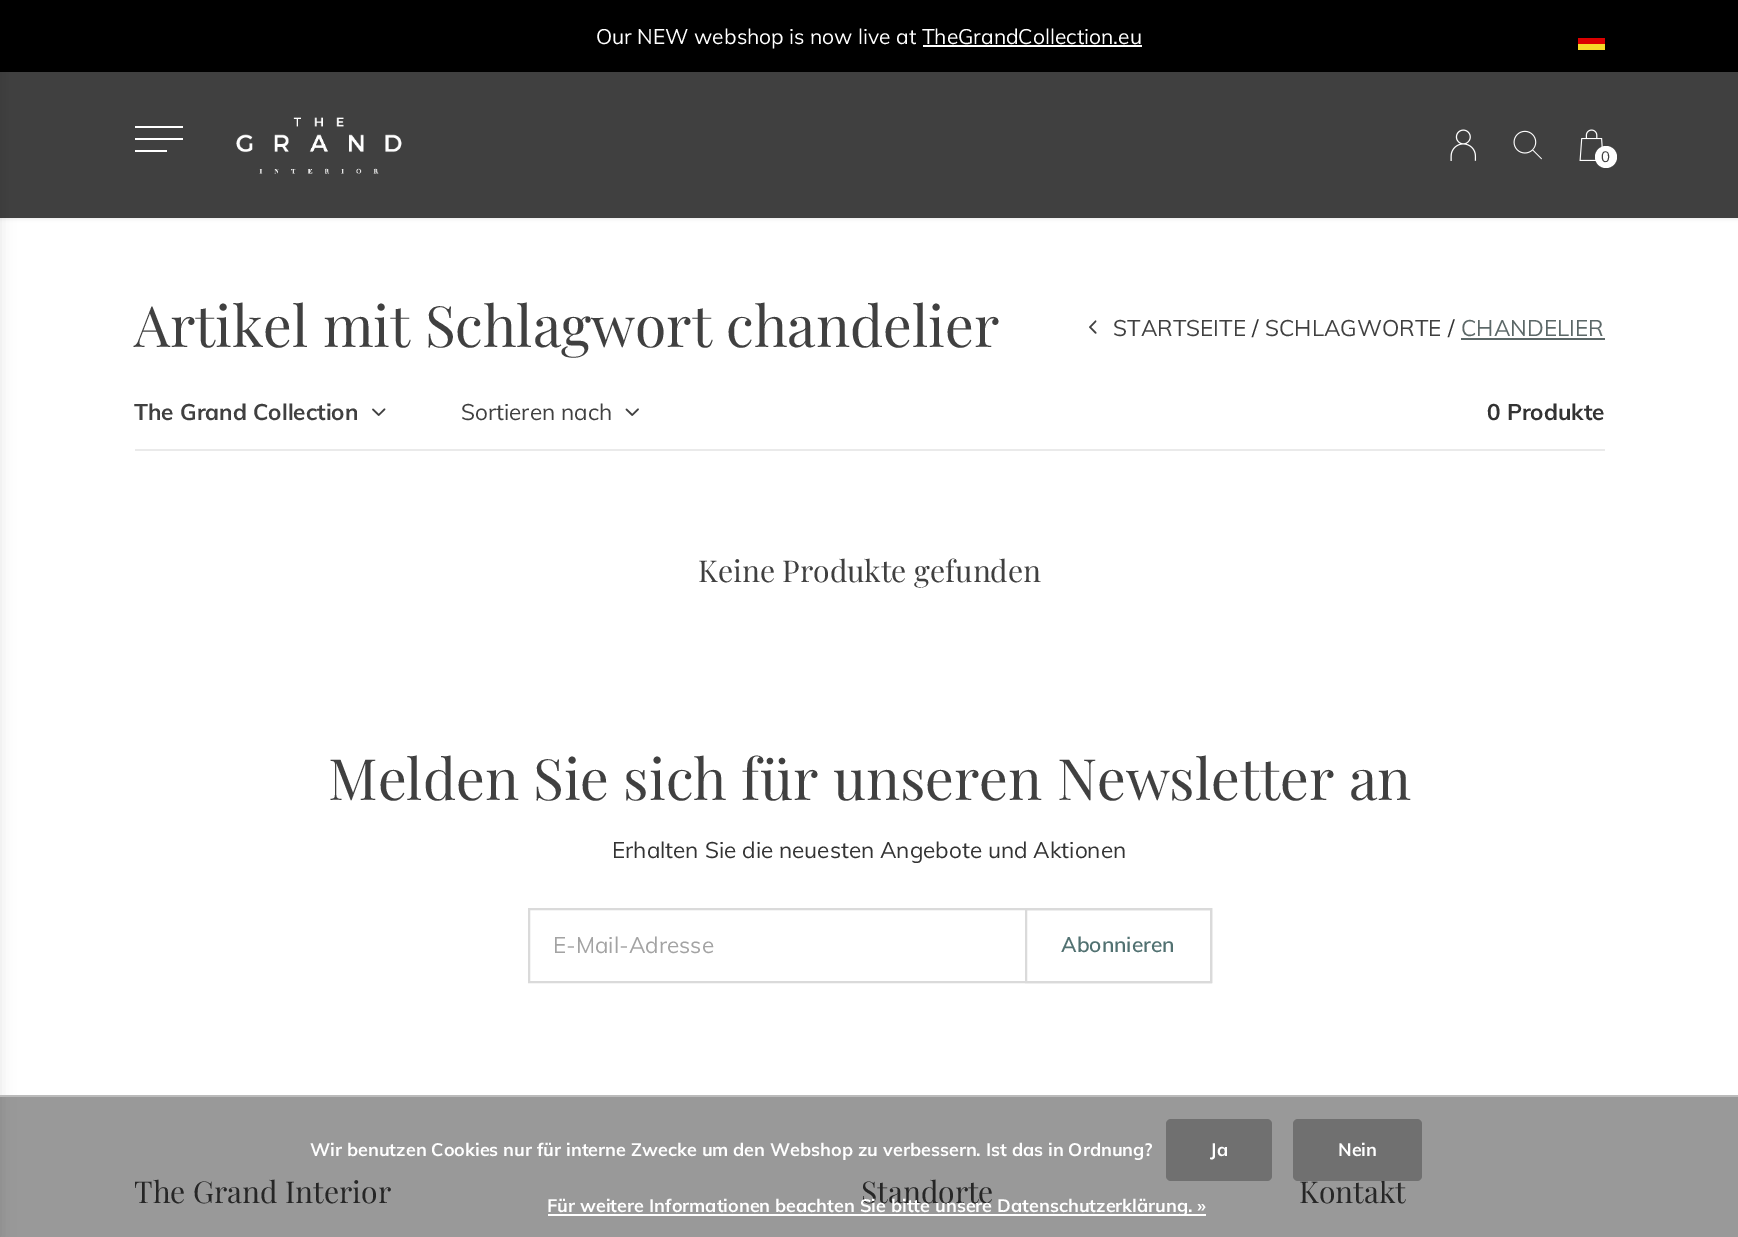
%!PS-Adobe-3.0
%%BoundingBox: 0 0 1738 1237
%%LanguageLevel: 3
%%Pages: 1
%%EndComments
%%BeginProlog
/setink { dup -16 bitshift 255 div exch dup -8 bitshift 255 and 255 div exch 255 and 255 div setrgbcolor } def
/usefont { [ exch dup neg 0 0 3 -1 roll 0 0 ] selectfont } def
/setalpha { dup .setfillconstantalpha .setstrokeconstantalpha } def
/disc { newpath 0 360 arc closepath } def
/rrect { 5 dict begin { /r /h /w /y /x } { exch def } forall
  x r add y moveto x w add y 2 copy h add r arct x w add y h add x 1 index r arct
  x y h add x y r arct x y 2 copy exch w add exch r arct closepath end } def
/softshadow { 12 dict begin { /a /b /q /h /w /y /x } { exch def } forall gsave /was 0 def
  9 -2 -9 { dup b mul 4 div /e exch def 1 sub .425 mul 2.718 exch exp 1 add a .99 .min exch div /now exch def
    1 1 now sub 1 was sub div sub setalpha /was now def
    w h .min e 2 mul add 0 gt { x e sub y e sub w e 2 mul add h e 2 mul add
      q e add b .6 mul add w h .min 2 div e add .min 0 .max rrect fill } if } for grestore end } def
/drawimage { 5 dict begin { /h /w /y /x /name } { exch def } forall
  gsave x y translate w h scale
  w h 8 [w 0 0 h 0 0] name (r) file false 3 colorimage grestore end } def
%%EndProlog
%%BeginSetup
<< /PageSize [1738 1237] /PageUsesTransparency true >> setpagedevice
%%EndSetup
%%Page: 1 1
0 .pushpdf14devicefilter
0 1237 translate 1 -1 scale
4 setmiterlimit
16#FFFFFF setink
0 0 1738 1237 rectfill
16#000000 setink
-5 2 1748 217 0 1.5 0.08 softshadow
16#404040 setink
0 72 1738 146 rectfill
16#000000 setink
0 0 1738 72 rectfill
-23 0 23 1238 0 7.5 0.1 softshadow
/Muli-Regular 21 usefont
16#FFFFFF setink
596 44 moveto (Our NEW webshop is now live at TheGrandCollection.eu) show
[
    [923 45 219 2 16#FFFFFF]
    [1578 38 27 6 16#DB0000]
    [1578 44 27 6 16#F6D928]
] { aload pop setink rectfill } forall
16#FFFFFF setink
135 126 moveto 183 126 lineto 183 128 lineto 135 128 lineto closepath 135 138 moveto 183 138 lineto 183 140 lineto 135 140 lineto closepath 135 150 moveto 167 150 lineto 167 152 lineto 135 152 lineto closepath fill
(img1.raw) 236 117 166 57 drawimage
(img2.raw) 1450 129 27 32 drawimage
(img3.raw) 1513 130 29 30 drawimage
(img4.raw) 1579 129 24 32 drawimage
1606 157 11 disc fill
/Muli-Regular 15 usefont
16#404040 setink
1601 162 moveto (0) show
/PlayfairDisplay-Regular 57 usefont
134 347 moveto (Artikel mit Schlagwort chandelier) show
(img5.raw) 1089 320 8 14 drawimage
/Muli-Regular 22.5 usefont
1113 336 moveto (STARTSEITE) show
16#333333 setink
1252 336 moveto (/) show
16#404040 setink
1265 336 moveto (SCHLAGWORTE) show
16#333333 setink
1448 336 moveto (/) show
16#5C6868 setink
1461 336 moveto (CHANDELIER) show
1461 338 144 2 rectfill
16#EAEAEA setink
135 449 1470 2 rectfill
/Muli-Bold 22.5 usefont
16#404040 setink
134 420 moveto (The Grand Collection) show
(img6.raw) 372 408 14 8 drawimage
/Muli-Regular 22.5 usefont
461 420 moveto (Sortieren nach) show
(img7.raw) 625 408 14 8 drawimage
/Muli-Bold 22.5 usefont
16#333333 setink
1487 420 moveto (0 Produkte) show
/PlayfairDisplay-Regular 30 usefont
16#404040 setink
698 582 moveto (Keine Produkte gefunden) show
/PlayfairDisplay-Regular 57 usefont
328 800 moveto (Melden Sie sich für unseren Newsletter an) show
/Muli-Regular 22.5 usefont
16#333333 setink
612 858 moveto (Erhalten Sie die neuesten Angebote und Aktionen) show
16#DADADA setink
2 setlinewidth
529 909 682 73 rectstroke
16#A3A3A3 setink
553 953 moveto (E-Mail-Adresse) show
16#DADADA setink
1026 909 185 73 rectstroke
/Muli-SemiBold 21 usefont
16#517171 setink
1061 952 moveto (Abonnieren) show
/PlayfairDisplay-Regular 30 usefont
16#404040 setink
[
    [(The Grand Interior) 134 1203]
    [(Standorte) 861 1203]
    [(Kontakt) 1299 1203]
] { aload pop moveto show } forall
0.4 setalpha
16#000000 setink
0 1097 1738 140 rectfill
1 setalpha
16#BBBBBB setink
0 1095 1738 2 rectfill
/Muli-Bold 18 usefont
16#FFFFFF setink
310 1156 moveto (Wir benutzen Cookies nur für interne Zwecke um den Webshop zu verbessern. Ist das in Ordnung?) show
16#707070 setink
1166 1119 106 62 5 rrect fill
16#FFFFFF setink
1210 1156 moveto (Ja) show
16#707070 setink
1293 1119 129 62 5 rrect fill
16#FFFFFF setink
1338 1156 moveto (Nein) show
548 1214 658 2 rectfill
547 1212 moveto (Für weitere Informationen beachten Sie bitte unsere Datenschutzerklärung. ») show
.poppdf14devicefilter showpage
%%EOF
